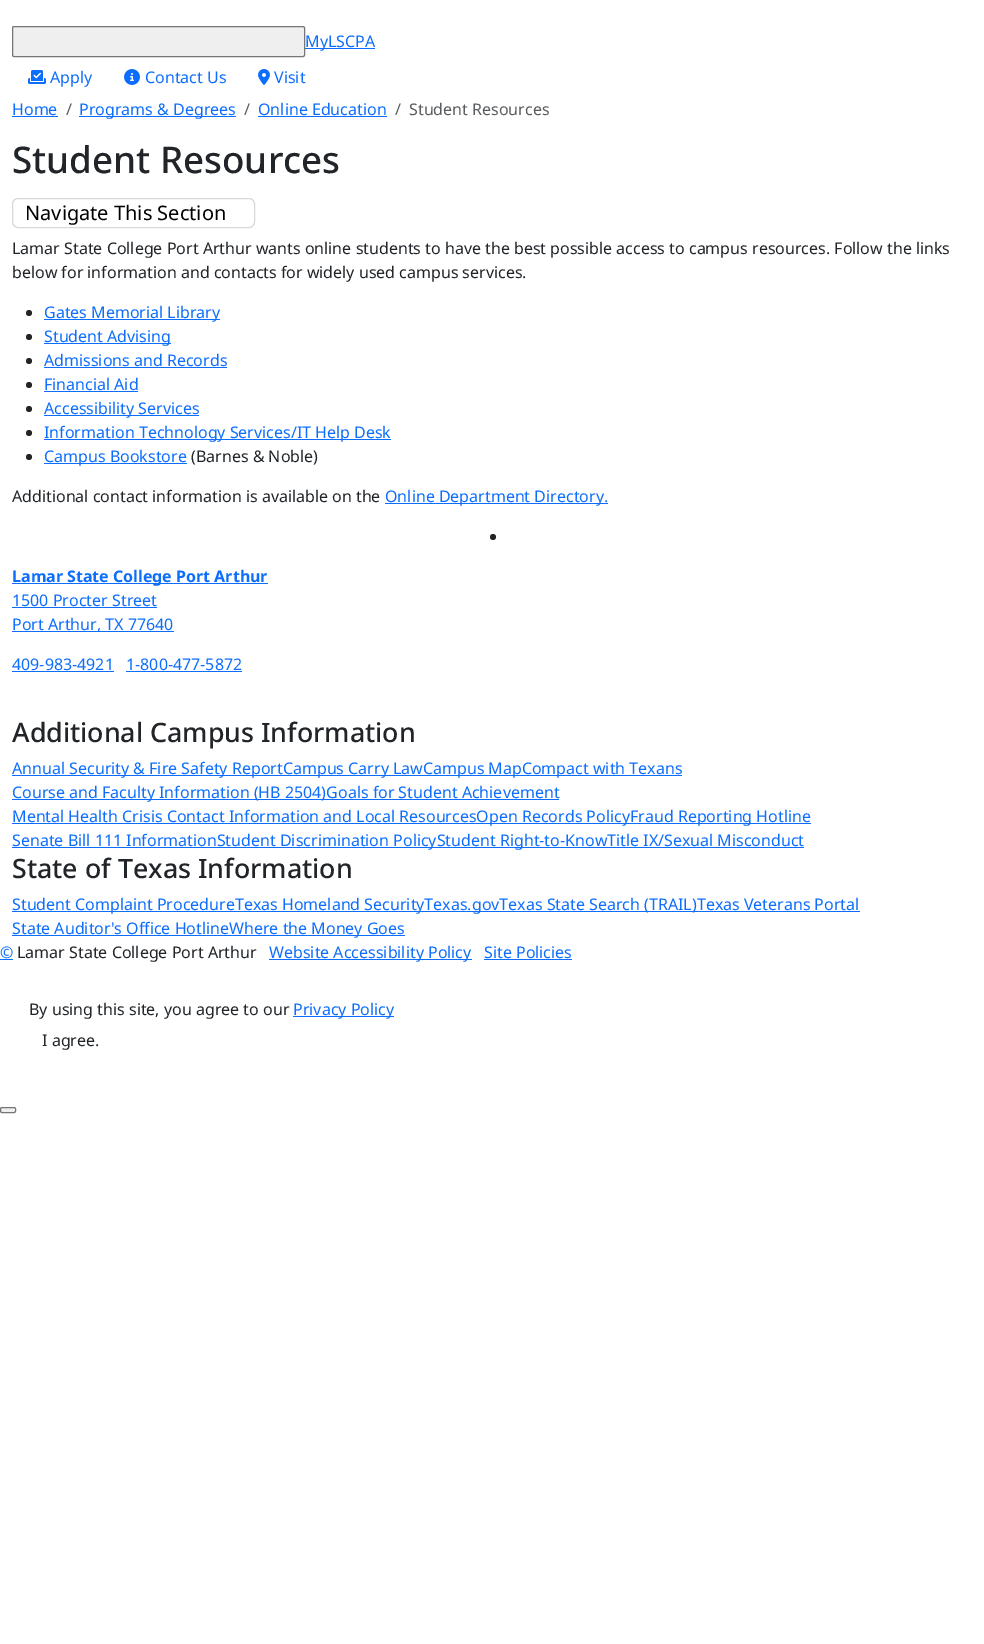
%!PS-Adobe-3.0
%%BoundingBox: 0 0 984 1644
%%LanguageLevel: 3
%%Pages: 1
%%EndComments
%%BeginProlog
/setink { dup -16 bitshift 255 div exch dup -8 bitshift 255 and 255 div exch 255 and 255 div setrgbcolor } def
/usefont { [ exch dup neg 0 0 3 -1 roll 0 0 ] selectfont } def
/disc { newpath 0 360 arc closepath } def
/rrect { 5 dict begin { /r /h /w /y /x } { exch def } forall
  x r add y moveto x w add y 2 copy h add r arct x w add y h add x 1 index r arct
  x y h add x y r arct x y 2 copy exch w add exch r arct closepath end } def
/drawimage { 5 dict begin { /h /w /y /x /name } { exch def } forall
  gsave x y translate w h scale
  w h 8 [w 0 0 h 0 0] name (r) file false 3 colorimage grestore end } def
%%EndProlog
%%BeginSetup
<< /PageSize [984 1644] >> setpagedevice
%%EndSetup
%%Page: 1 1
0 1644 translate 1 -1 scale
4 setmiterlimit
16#FFFFFF setink
0 0 984 1644 rectfill
16#EFEFEF setink
12.5 26.5 292 30 1.5 rrect gsave fill grestore
16#767676 setink
stroke
16#0D6EFD setink
305 48 70 1 rectfill
/NotoSans-Regular 16 usefont
305 47 moveto (MyLSCPA) show
(img1.raw) 28 70 18 14 drawimage
50 83 moveto (Apply) show
(img2.raw) 124 69 16 16 drawimage
145 83 moveto (Contact Us) show
(img3.raw) 258 69 12 16 drawimage
274 83 moveto (Visit) show
12 115 moveto (Home) show
12 116 46 1 rectfill
16#595C5F setink
66 115 moveto (/) show
16#0D6EFD setink
79 116 157 1 rectfill
79 115 moveto (Programs & Degrees) show
16#595C5F setink
244 115 moveto (/) show
16#0D6EFD setink
258 115 moveto (Online Education) show
258 116 129 1 rectfill
16#595C5F setink
395 115 moveto (/) show
409 115 moveto (Student Resources) show
/NotoSans-Medium 36.75 usefont
16#212529 setink
12 173 moveto (Student Resources) show
16#D9D9D9 setink
12.5 198.5 242 29 5.5 rrect stroke
/NotoSans-Regular 20 usefont
16#000000 setink
25 220 moveto (Navigate This Section) show
/NotoSans-Regular 16 usefont
16#212529 setink
12 254 moveto (Lamar State College Port Arthur wants online students to have the best possible access to campus resources. Follow the links) show
12 278 moveto (below for information and contacts for widely used campus services.) show
29 313 3 disc fill
16#0D6EFD setink
44 319 176 1 rectfill
44 318 moveto (Gates Memorial Library) show
16#212529 setink
29 337 3 disc fill
16#0D6EFD setink
44 343 127 1 rectfill
44 342 moveto (Student Advising) show
16#212529 setink
29 361 3 disc fill
16#0D6EFD setink
44 366 moveto (Admissions and Records) show
44 367 183 1 rectfill
16#212529 setink
29 385 3 disc fill
16#0D6EFD setink
44 390 moveto (Financial Aid) show
44 391 94 1 rectfill
16#212529 setink
29 409 3 disc fill
16#0D6EFD setink
44 415 155 1 rectfill
44 414 moveto (Accessibility Services) show
16#212529 setink
29 433 3 disc fill
16#0D6EFD setink
44 439 347 1 rectfill
44 438 moveto (Information Technology Services/IT Help Desk) show
16#212529 setink
29 457 3 disc fill
16#0D6EFD setink
44 463 143 1 rectfill
44 462 moveto (Campus Bookstore) show
16#212529 setink
191 462 moveto (\(Barnes & Noble\)) show
12 502 moveto (Additional contact information is available on the) show
16#0D6EFD setink
385 503 223 1 rectfill
385 502 moveto (Online Department Directory.) show
16#212529 setink
493 537 3 disc fill
16#0D6EFD setink
12 583 256 1 rectfill
/NotoSans-Bold 16 usefont
12 582 moveto (Lamar State College Port Arthur) show
/NotoSans-Regular 16 usefont
12 606 moveto (1500 Procter Street) show
12 607 145 1 rectfill
12 631 162 1 rectfill
12 630 moveto (Port Arthur, TX 77640) show
12 670 moveto (409-983-4921) show
12 671 102 1 rectfill
126 670 moveto (1-800-477-5872) show
126 671 116 1 rectfill
/NotoSans-Medium 26.75 usefont
16#212529 setink
12 742 moveto (Additional Campus Information) show
16#0D6EFD setink
12 775 670 1 rectfill
/NotoSans-Regular 16 usefont
12 774 moveto (Annual Security & Fire Safety ReportCampus Carry LawCampus MapCompact with Texans) show
12 799 547 1 rectfill
12 798 moveto (Course and Faculty Information \(HB 2504\)Goals for Student Achievement) show
12 823 799 1 rectfill
12 822 moveto (Mental Health Crisis Contact Information and Local ResourcesOpen Records PolicyFraud Reporting Hotline) show
12 847 595 1 rectfill
12 846 moveto (Senate Bill 111 InformationStudent Discrimination PolicyStudent Right-to-KnowTitle IX/Sexual Misconduct) show
607 847 197 1 rectfill
/NotoSans-Medium 26.75 usefont
16#212529 setink
12 878 moveto (State of Texas Information) show
16#0D6EFD setink
12 911 848 1 rectfill
/NotoSans-Regular 16 usefont
12 910 moveto (Student Complaint ProcedureTexas Homeland SecurityTexas.govTexas State Search \(TRAIL\)Texas Veterans Portal) show
12 935 393 1 rectfill
12 934 moveto (State Auditor's Office HotlineWhere the Money Goes) show
0 958 moveto (©) show
0 959 13 1 rectfill
16#212529 setink
17 958 moveto (Lamar State College Port Arthur) show
16#0D6EFD setink
269 959 203 1 rectfill
269 958 moveto (Website Accessibility Policy) show
484 958 moveto (Site Policies) show
484 959 88 1 rectfill
16#212529 setink
29 1015 moveto (By using this site, you agree to our) show
16#0D6EFD setink
293 1016 101 1 rectfill
293 1015 moveto (Privacy Policy) show
16#212529 setink
42 1046 moveto (I agree.) show
16#EFEFEF setink
0.5 1107.5 15 5 1.5 rrect gsave fill grestore
16#767676 setink
stroke
showpage
%%EOF
